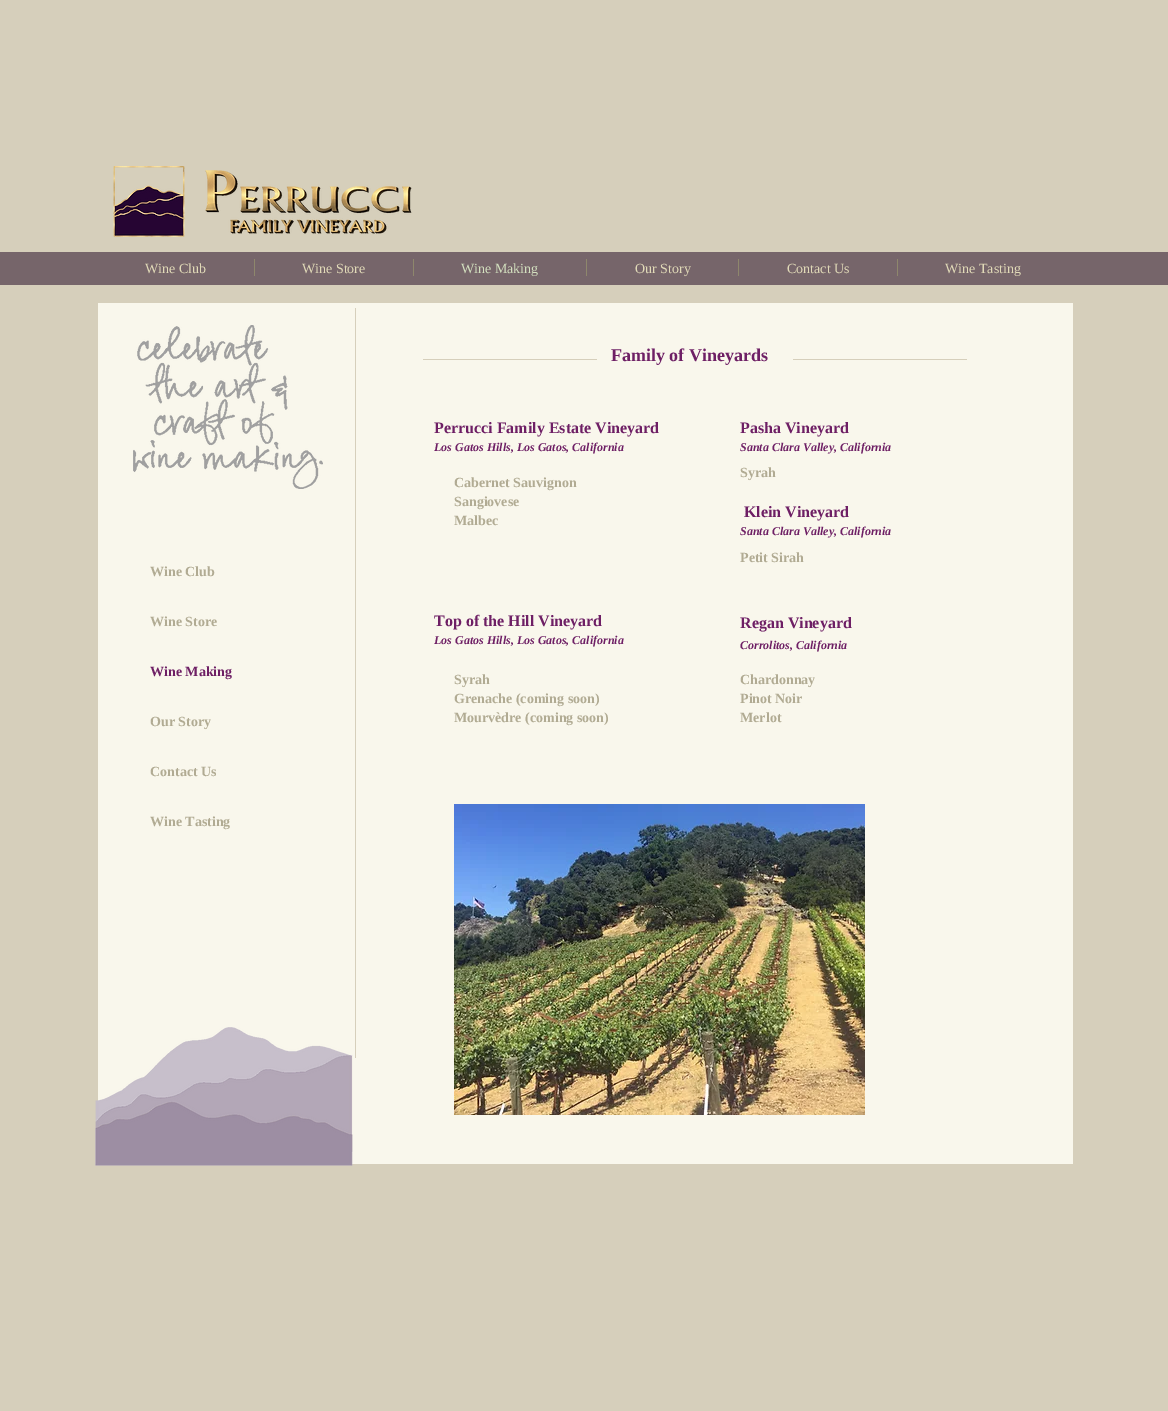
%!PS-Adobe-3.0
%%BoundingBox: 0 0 1168 1411
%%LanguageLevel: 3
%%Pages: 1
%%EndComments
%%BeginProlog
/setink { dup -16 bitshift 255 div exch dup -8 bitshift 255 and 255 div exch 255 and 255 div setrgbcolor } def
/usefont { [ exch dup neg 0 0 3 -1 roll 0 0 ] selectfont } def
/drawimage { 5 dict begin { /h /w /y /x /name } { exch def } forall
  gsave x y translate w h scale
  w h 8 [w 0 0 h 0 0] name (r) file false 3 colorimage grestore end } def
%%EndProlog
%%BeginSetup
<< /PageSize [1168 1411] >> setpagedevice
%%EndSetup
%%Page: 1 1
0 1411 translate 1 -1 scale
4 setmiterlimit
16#D6CFBB setink
0 0 1168 1411 rectfill
(img1.raw) 113 166 72 71 drawimage
(img2.raw) 205 170 207 64 drawimage
16#76656A setink
0 252 1168 33 rectfill
/LiberationSerif-Regular 14 usefont
16#E1DAB8 setink
145 273 moveto (Wine Club) show
16#8E876C setink
254 259 1 17 rectfill
16#E1DAB8 setink
302 273 moveto (Wine Store) show
16#8E876C setink
413 259 1 17 rectfill
16#D3E0BF setink
461 273 moveto (Wine Making) show
16#8E876C setink
586 259 1 17 rectfill
16#E1DAB8 setink
635 273 moveto (Our Story) show
16#8E876C setink
738 259 1 17 rectfill
16#E1DAB8 setink
787 273 moveto (Contact Us) show
16#8E876C setink
897 259 1 17 rectfill
16#E1DAB8 setink
945 273 moveto (Wine Tasting) show
16#F9F7EC setink
98 303 975 861 rectfill
(img3.raw) 133 325 190 164 drawimage
16#D6CFBB setink
355 308 1 750 rectfill
423 359 174 1 rectfill
/LiberationSerif-Bold 18 usefont
16#6E1F65 setink
611 361 moveto (Family of Vineyards) show
16#D6CFBB setink
793 359 174 1 rectfill
/LiberationSerif-Bold 16 usefont
16#6E1F65 setink
434 433 moveto (Perrucci Family Estate Vineyard) show
/LiberationSerif-BoldItalic 12 usefont
434 451 moveto (Los Gatos Hills, Los Gatos, California) show
/LiberationSerif-Bold 16 usefont
740 433 moveto (Pasha Vineyard) show
/LiberationSerif-BoldItalic 12 usefont
740 451 moveto (Santa Clara Valley, California) show
/LiberationSerif-Bold 14 usefont
16#B1AB93 setink
[
    [(Syrah) 740 477]
    [(Cabernet Sauvignon) 454 487]
    [(Sangiovese) 454 506]
    [(Malbec) 454 525]
] { aload pop moveto show } forall
/LiberationSerif-Bold 16 usefont
16#6E1F65 setink
744 517 moveto (Klein Vineyard) show
/LiberationSerif-BoldItalic 12 usefont
740 535 moveto (Santa Clara Valley, California) show
/LiberationSerif-Bold 14 usefont
16#B1AB93 setink
[
    [(Petit Sirah) 740 562]
    [(Wine Club) 150 576]
    [(Wine Store) 150 626]
] { aload pop moveto show } forall
16#6E1F65 setink
150 676 moveto (Wine Making) show
16#B1AB93 setink
[
    [(Our Story) 150 726]
    [(Contact Us) 150 776]
    [(Wine Tasting) 150 826]
] { aload pop moveto show } forall
/LiberationSerif-Bold 16 usefont
16#6E1F65 setink
434 626 moveto (Top of the Hill Vineyard) show
/LiberationSerif-BoldItalic 12 usefont
434 644 moveto (Los Gatos Hills, Los Gatos, California) show
/LiberationSerif-Bold 16 usefont
740 628 moveto (Regan Vineyard) show
/LiberationSerif-BoldItalic 12 usefont
740 649 moveto (Corrolitos, California) show
/LiberationSerif-Bold 14 usefont
16#B1AB93 setink
[
    [(Syrah) 454 684]
    [(Grenache \(coming soon\)) 454 703]
    [(Mourvèdre \(coming soon\)) 454 722]
    [(Chardonnay) 740 684]
    [(Pinot Noir) 740 703]
    [(Merlot) 740 722]
] { aload pop moveto show } forall
(img4.raw) 454 804 411 311 drawimage
(img5.raw) 95 1027 258 139 drawimage
showpage
%%EOF
